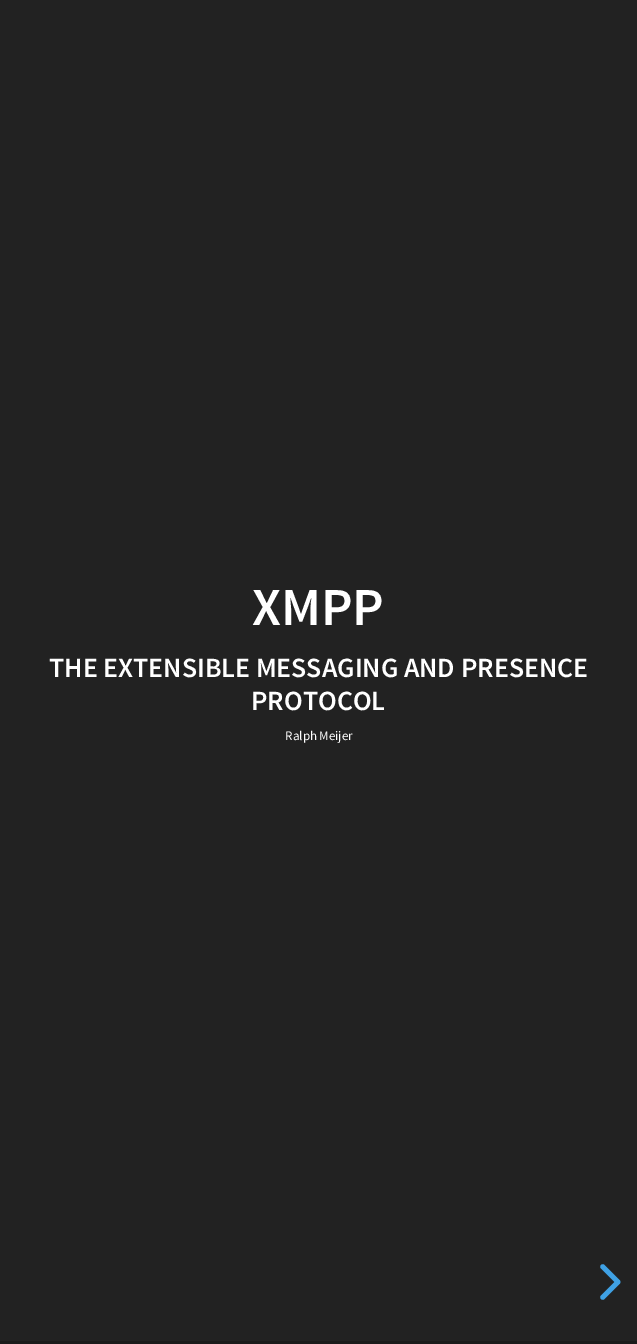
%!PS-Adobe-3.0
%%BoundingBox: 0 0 637 1344
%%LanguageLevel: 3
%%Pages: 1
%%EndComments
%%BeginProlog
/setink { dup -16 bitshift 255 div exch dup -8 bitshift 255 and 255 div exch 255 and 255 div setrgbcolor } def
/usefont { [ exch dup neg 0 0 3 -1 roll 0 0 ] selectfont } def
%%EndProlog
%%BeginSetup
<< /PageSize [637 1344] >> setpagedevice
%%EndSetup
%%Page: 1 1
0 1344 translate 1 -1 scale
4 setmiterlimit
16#222222 setink
0 0 637 1344 rectfill
/SourceSansPro-SemiBold 53.5 usefont
16#FFFFFF setink
252 625 moveto (XMPP) show
/SourceSansPro-SemiBold 27.8 usefont
49 677 moveto (THE EXTENSIBLE MESSAGING AND PRESENCE) show
251 710 moveto (PROTOCOL) show
/SourceSansPro-Regular 13 usefont
285 740 moveto (Ralph Meijer) show
16#3FA1E4 setink
616 1283.5 moveto 601 1268.5 lineto 600 1267.5 600 1266 601 1265 curveto 602 1264 603.5 1264 604.5 1265 curveto 619.5 1280 lineto 620.5 1281 620.5 1282.5 619.5 1283.5 curveto 618.5 1284.5 617 1284.5 616 1283.5 curveto closepath fill
619.5 1284 moveto 604.5 1299 lineto 603.5 1300 602 1300 601 1299 curveto 600 1298 600 1296.5 601 1295.5 curveto 616 1280.5 lineto 617 1279.5 618.5 1279.5 619.5 1280.5 curveto 620.5 1281.5 620.5 1283 619.5 1284 curveto closepath fill
16#1B1B1B setink
0 1341 637 3 rectfill
showpage
%%EOF
